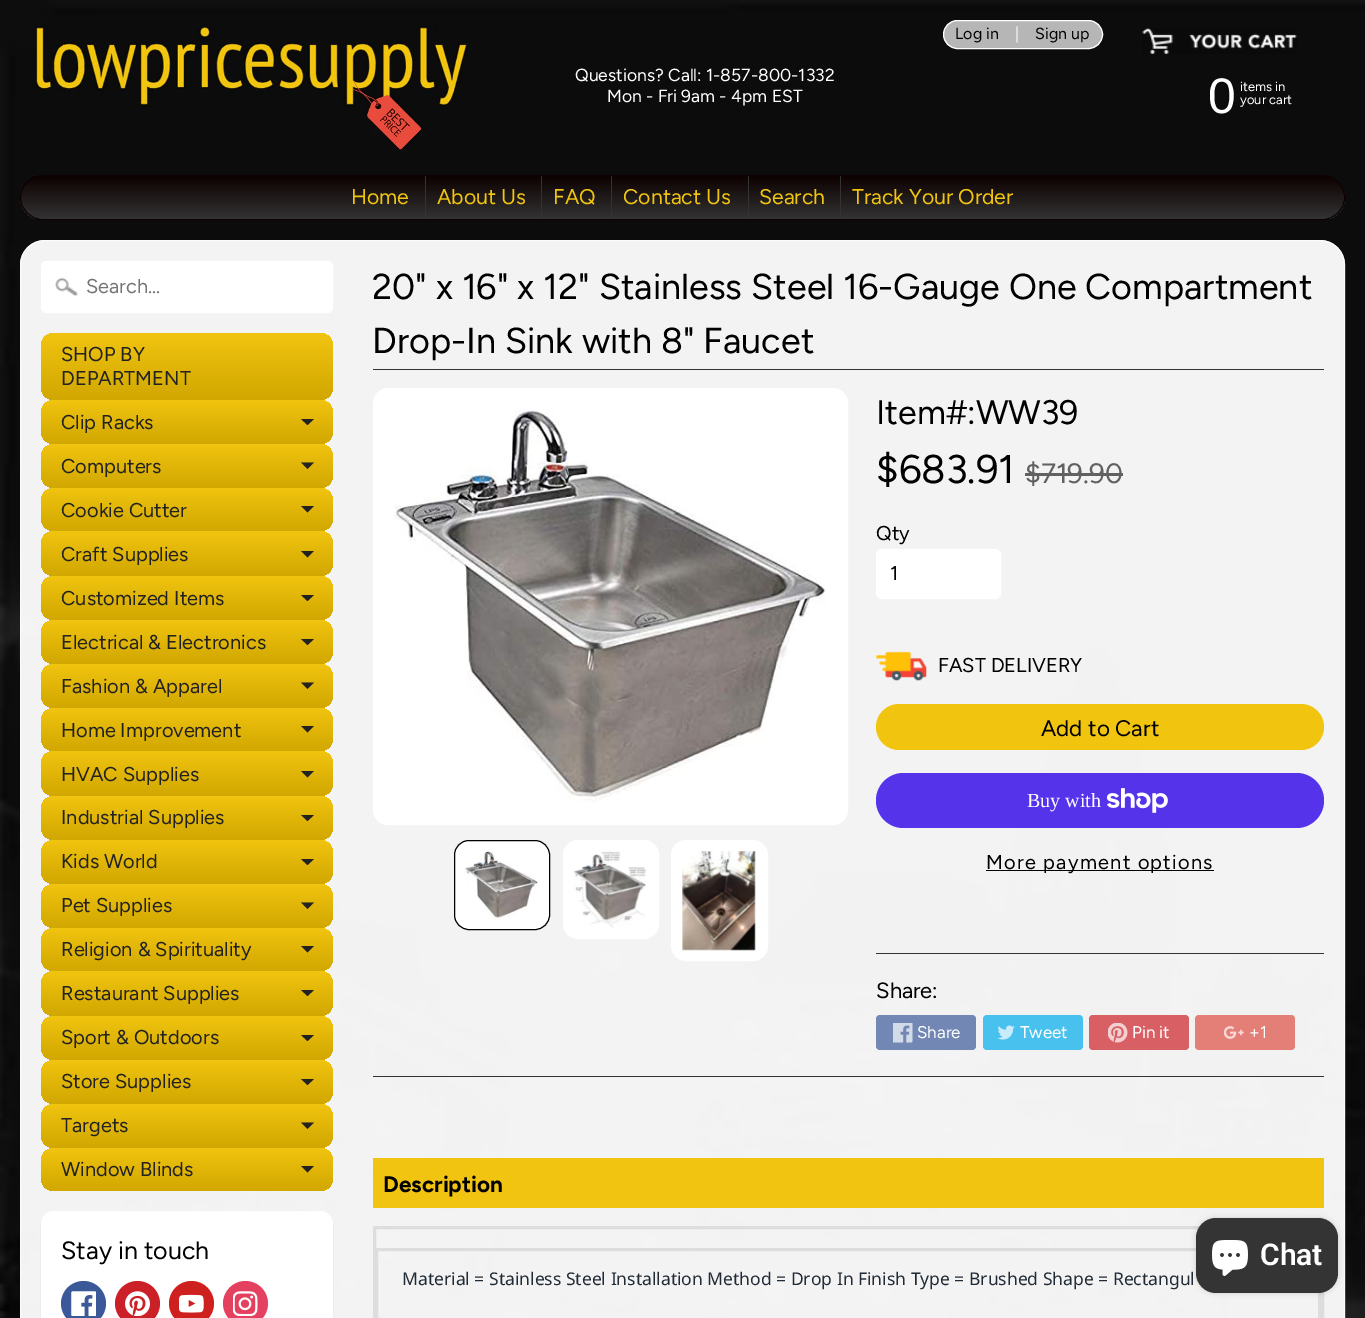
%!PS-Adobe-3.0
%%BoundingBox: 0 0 1365 1318
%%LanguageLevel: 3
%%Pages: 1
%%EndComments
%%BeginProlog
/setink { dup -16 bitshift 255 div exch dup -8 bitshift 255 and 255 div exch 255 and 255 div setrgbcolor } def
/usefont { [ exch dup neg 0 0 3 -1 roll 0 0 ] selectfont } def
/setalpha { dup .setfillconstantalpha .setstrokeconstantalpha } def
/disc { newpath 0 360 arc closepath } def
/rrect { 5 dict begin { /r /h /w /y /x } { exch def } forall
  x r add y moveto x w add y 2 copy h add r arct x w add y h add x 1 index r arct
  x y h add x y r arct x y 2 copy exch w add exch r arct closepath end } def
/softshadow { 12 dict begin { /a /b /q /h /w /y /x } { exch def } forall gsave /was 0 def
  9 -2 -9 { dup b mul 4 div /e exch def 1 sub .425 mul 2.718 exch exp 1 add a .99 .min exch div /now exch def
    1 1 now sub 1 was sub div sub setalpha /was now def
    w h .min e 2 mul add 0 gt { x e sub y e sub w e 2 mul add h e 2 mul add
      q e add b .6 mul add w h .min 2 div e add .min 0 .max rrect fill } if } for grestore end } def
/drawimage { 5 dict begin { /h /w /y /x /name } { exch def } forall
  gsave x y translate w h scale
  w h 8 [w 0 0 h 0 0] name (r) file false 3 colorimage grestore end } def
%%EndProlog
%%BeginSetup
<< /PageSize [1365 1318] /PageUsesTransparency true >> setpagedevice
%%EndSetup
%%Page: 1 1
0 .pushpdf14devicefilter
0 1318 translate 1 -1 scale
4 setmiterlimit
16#FFFFFF setink
0 0 1365 1318 rectfill
(img1.raw) 0 0 1365 1318 drawimage
16#B6B6B6 setink
943.5 20.5 159 28 14 rrect gsave fill grestore
16#FFFFFF setink
stroke
/Figtree-Regular 16 usefont
16#000000 setink
955 39 moveto (Log in) show
16#FFFFFF setink
1015 39 moveto (|) show
16#000000 setink
1035 39 moveto (Sign up) show
(img2.raw) 35 25 433 127 drawimage
/Figtree-Regular 17.5 usefont
16#FFFFFF setink
575 81 moveto (Questions? Call: 1-857-800-1332) show
607 102 moveto (Mon - Fri 9am - 4pm EST) show
(img3.raw) 1142 28 155 26 drawimage
/LiberationSans-Regular 50 usefont
1208 113 moveto (0) show
/Figtree-Regular 13 usefont
1240 91 moveto (items in) show
1240 104 moveto (your cart) show
gsave
20 175 1325 45 22.5 rrect clip newpath
gsave 20 176 moveto 1345 176 lineto 1345 219 lineto 20 219 lineto closepath clip newpath
<< /ShadingType 2 /ColorSpace /DeviceRGB /Coords [683 176 683 219] /Extend [true true] /Function << /FunctionType 2 /Domain [0 1] /C0 [0.051 0.004 0.004] /C1 [0.2 0.2 0.2] /N 1 >> >> shfill grestore
grestore
16#0D0101 setink
20.5 175.5 1324 44 22 rrect stroke
/Figtree-Regular 21.25 usefont
16#F1C40F setink
351 204 moveto (Home) show
16#333333 setink
425 176 1 43 rectfill
16#F1C40F setink
437 204 moveto (About Us) show
16#333333 setink
541 176 1 43 rectfill
16#F1C40F setink
553 204 moveto (FAQ) show
16#333333 setink
611 176 1 43 rectfill
16#F1C40F setink
623 204 moveto (Contact Us) show
16#333333 setink
748 176 1 43 rectfill
16#F1C40F setink
759 204 moveto (Search) show
16#333333 setink
840 176 1 43 rectfill
16#F1C40F setink
852 204 moveto (Track Your Order) show
0.95 setalpha
16#FFFFFF setink
20 240 1325 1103 25 rrect fill
0.7 setalpha
20.5 240.5 1324 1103 24.5 rrect stroke
1 setalpha
41 261 292 52 6 rrect fill
(img4.raw) 55 277 23 20 drawimage
41.5 261.5 291 51 5.5 rrect stroke
/Figtree-Regular 20 usefont
16#757575 setink
86 293 moveto (Search...) show
gsave 41 333 292 67 13 rrect clip newpath
<< /ShadingType 2 /ColorSpace /DeviceRGB /Coords [187 333 187 400] /Extend [true true] /Function << /FunctionType 2 /Domain [0 1] /C0 [0.945 0.769 0.059] /C1 [0.82 0.655 0.004] /N 1 >> >> shfill grestore
16#222222 setink
61 361 moveto (SHOP BY) show
61 385 moveto (DEPARTMENT) show
gsave 41 400 292 44 13 rrect clip newpath
<< /ShadingType 2 /ColorSpace /DeviceRGB /Coords [187 400 187 444] /Extend [true true] /Function << /FunctionType 2 /Domain [0 1] /C0 [0.945 0.769 0.059] /C1 [0.82 0.655 0.004] /N 1 >> >> shfill grestore
61 429 moveto (Clip Racks) show
301 419 moveto 314 419 lineto 307.5 425 lineto closepath fill
gsave 41 444 292 44 13 rrect clip newpath
<< /ShadingType 2 /ColorSpace /DeviceRGB /Coords [187 444 187 488] /Extend [true true] /Function << /FunctionType 2 /Domain [0 1] /C0 [0.945 0.769 0.059] /C1 [0.82 0.655 0.004] /N 1 >> >> shfill grestore
61 473 moveto (Computers) show
301 462.5 moveto 314 462.5 lineto 307.5 469 lineto closepath fill
gsave 41 488 292 43 13 rrect clip newpath
<< /ShadingType 2 /ColorSpace /DeviceRGB /Coords [187 488 187 531] /Extend [true true] /Function << /FunctionType 2 /Domain [0 1] /C0 [0.945 0.769 0.059] /C1 [0.82 0.655 0.004] /N 1 >> >> shfill grestore
61 517 moveto (Cookie Cutter) show
301 506 moveto 314 506 lineto 307.5 512.5 lineto closepath fill
gsave 41 531 292 45 13 rrect clip newpath
<< /ShadingType 2 /ColorSpace /DeviceRGB /Coords [187 531 187 576] /Extend [true true] /Function << /FunctionType 2 /Domain [0 1] /C0 [0.945 0.769 0.059] /C1 [0.82 0.655 0.004] /N 1 >> >> shfill grestore
61 561 moveto (Craft Supplies) show
301 551 moveto 314 551 lineto 307.5 557.5 lineto closepath fill
gsave 41 576 292 44 13 rrect clip newpath
<< /ShadingType 2 /ColorSpace /DeviceRGB /Coords [187 576 187 620] /Extend [true true] /Function << /FunctionType 2 /Domain [0 1] /C0 [0.945 0.769 0.059] /C1 [0.82 0.655 0.004] /N 1 >> >> shfill grestore
61 605 moveto (Customized Items) show
301 595 moveto 314 595 lineto 307.5 601 lineto closepath fill
gsave 41 620 292 44 13 rrect clip newpath
<< /ShadingType 2 /ColorSpace /DeviceRGB /Coords [187 620 187 664] /Extend [true true] /Function << /FunctionType 2 /Domain [0 1] /C0 [0.945 0.769 0.059] /C1 [0.82 0.655 0.004] /N 1 >> >> shfill grestore
61 649 moveto (Electrical & Electronics) show
301 639 moveto 314 639 lineto 307.5 645 lineto closepath fill
gsave 41 664 292 44 13 rrect clip newpath
<< /ShadingType 2 /ColorSpace /DeviceRGB /Coords [187 664 187 708] /Extend [true true] /Function << /FunctionType 2 /Domain [0 1] /C0 [0.945 0.769 0.059] /C1 [0.82 0.655 0.004] /N 1 >> >> shfill grestore
61 693 moveto (Fashion & Apparel) show
301 682.5 moveto 314 682.5 lineto 307.5 689 lineto closepath fill
gsave 41 708 292 43 13 rrect clip newpath
<< /ShadingType 2 /ColorSpace /DeviceRGB /Coords [187 708 187 751] /Extend [true true] /Function << /FunctionType 2 /Domain [0 1] /C0 [0.945 0.769 0.059] /C1 [0.82 0.655 0.004] /N 1 >> >> shfill grestore
61 737 moveto (Home Improvement) show
301 726 moveto 314 726 lineto 307.5 732.5 lineto closepath fill
gsave 41 751 292 45 13 rrect clip newpath
<< /ShadingType 2 /ColorSpace /DeviceRGB /Coords [187 751 187 796] /Extend [true true] /Function << /FunctionType 2 /Domain [0 1] /C0 [0.945 0.769 0.059] /C1 [0.82 0.655 0.004] /N 1 >> >> shfill grestore
61 781 moveto (HVAC Supplies) show
301 771 moveto 314 771 lineto 307.5 777.5 lineto closepath fill
gsave 41 796 292 44 13 rrect clip newpath
<< /ShadingType 2 /ColorSpace /DeviceRGB /Coords [187 796 187 840] /Extend [true true] /Function << /FunctionType 2 /Domain [0 1] /C0 [0.945 0.769 0.059] /C1 [0.82 0.655 0.004] /N 1 >> >> shfill grestore
61 824 moveto (Industrial Supplies) show
301 815 moveto 314 815 lineto 307.5 821 lineto closepath fill
gsave 41 840 292 44 13 rrect clip newpath
<< /ShadingType 2 /ColorSpace /DeviceRGB /Coords [187 840 187 884] /Extend [true true] /Function << /FunctionType 2 /Domain [0 1] /C0 [0.945 0.769 0.059] /C1 [0.82 0.655 0.004] /N 1 >> >> shfill grestore
61 868 moveto (Kids World) show
301 859 moveto 314 859 lineto 307.5 865 lineto closepath fill
gsave 41 884 292 44 13 rrect clip newpath
<< /ShadingType 2 /ColorSpace /DeviceRGB /Coords [187 884 187 928] /Extend [true true] /Function << /FunctionType 2 /Domain [0 1] /C0 [0.945 0.769 0.059] /C1 [0.82 0.655 0.004] /N 1 >> >> shfill grestore
61 912 moveto (Pet Supplies) show
301 902.5 moveto 314 902.5 lineto 307.5 909 lineto closepath fill
gsave 41 928 292 43 13 rrect clip newpath
<< /ShadingType 2 /ColorSpace /DeviceRGB /Coords [187 928 187 971] /Extend [true true] /Function << /FunctionType 2 /Domain [0 1] /C0 [0.945 0.769 0.059] /C1 [0.82 0.655 0.004] /N 1 >> >> shfill grestore
61 956 moveto (Religion & Spirituality) show
301 946 moveto 314 946 lineto 307.5 952.5 lineto closepath fill
gsave 41 971 292 45 13 rrect clip newpath
<< /ShadingType 2 /ColorSpace /DeviceRGB /Coords [187 971 187 1016] /Extend [true true] /Function << /FunctionType 2 /Domain [0 1] /C0 [0.945 0.769 0.059] /C1 [0.82 0.655 0.004] /N 1 >> >> shfill grestore
61 1000 moveto (Restaurant Supplies) show
301 990 moveto 314 990 lineto 307.5 996 lineto closepath fill
gsave 41 1016 292 44 13 rrect clip newpath
<< /ShadingType 2 /ColorSpace /DeviceRGB /Coords [187 1016 187 1060] /Extend [true true] /Function << /FunctionType 2 /Domain [0 1] /C0 [0.945 0.769 0.059] /C1 [0.82 0.655 0.004] /N 1 >> >> shfill grestore
61 1044 moveto (Sport & Outdoors) show
301 1035 moveto 314 1035 lineto 307.5 1041 lineto closepath fill
gsave 41 1060 292 44 13 rrect clip newpath
<< /ShadingType 2 /ColorSpace /DeviceRGB /Coords [187 1060 187 1104] /Extend [true true] /Function << /FunctionType 2 /Domain [0 1] /C0 [0.945 0.769 0.059] /C1 [0.82 0.655 0.004] /N 1 >> >> shfill grestore
61 1088 moveto (Store Supplies) show
301 1079 moveto 314 1079 lineto 307.5 1085 lineto closepath fill
gsave 41 1104 292 44 13 rrect clip newpath
<< /ShadingType 2 /ColorSpace /DeviceRGB /Coords [187 1104 187 1148] /Extend [true true] /Function << /FunctionType 2 /Domain [0 1] /C0 [0.945 0.769 0.059] /C1 [0.82 0.655 0.004] /N 1 >> >> shfill grestore
61 1132 moveto (Targets) show
301 1122.5 moveto 314 1122.5 lineto 307.5 1129 lineto closepath fill
gsave 41 1148 292 43 13 rrect clip newpath
<< /ShadingType 2 /ColorSpace /DeviceRGB /Coords [187 1148 187 1191] /Extend [true true] /Function << /FunctionType 2 /Domain [0 1] /C0 [0.945 0.769 0.059] /C1 [0.82 0.655 0.004] /N 1 >> >> shfill grestore
61 1176 moveto (Window Blinds) show
301 1166 moveto 314 1166 lineto 307.5 1172.5 lineto closepath fill
16#000000 setink
41 1213 292 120 13 0.5 0.1 softshadow
16#FFFFFF setink
41 1211 292 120 13 rrect fill
/Figtree-Regular 25 usefont
16#000000 setink
61 1259 moveto (Stay in touch) show
16#3B5998 setink
83.5 1303.5 22.5 disc fill
(img5.raw) 71 1291 25 25 drawimage
16#CB2027 setink
137.5 1303.5 22.5 disc fill
(img6.raw) 125 1291 25 25 drawimage
16#CD201F setink
191.5 1303.5 22.5 disc fill
(img7.raw) 179 1294 25 19 drawimage
16#E4405F setink
245.5 1303.5 22.5 disc fill
(img8.raw) 233 1291 25 25 drawimage
16#333333 setink
373 369 951 1 rectfill
/Figtree-Regular 36 usefont
16#000000 setink
372 299 moveto (20" x 16" x 12" Stainless Steel 16-Gauge One Compartment) show
372 353 moveto (Drop-In Sink with 8" Faucet) show
16#FFFFFF setink
373.5 388.5 474 436 14.5 rrect gsave fill grestore
stroke
(img9.raw) 394 409 432 394 drawimage
454.5 840.5 95 89 14.5 rrect gsave fill grestore
16#000000 setink
stroke
(img10.raw) 465 851 73 67 drawimage
16#FFFFFF setink
563.5 840.5 95 98 14.5 rrect gsave fill grestore
stroke
(img11.raw) 573 851 74 77 drawimage
671.5 840.5 96 120 14.5 rrect gsave fill grestore
stroke
(img12.raw) 682 851 74 100 drawimage
/Figtree-Regular 34 usefont
16#000000 setink
876 424 moveto (Item#:WW39) show
/Figtree-Regular 40 usefont
876 483 moveto ($683.91) show
/Figtree-Regular 28 usefont
16#616161 setink
1025 483 moveto ($719.90) show
1025 473 98 3 rectfill
/Figtree-Regular 20 usefont
16#000000 setink
876 540 moveto (Qty) show
16#FFFFFF setink
876.5 549.5 124 49 5.5 rrect gsave fill grestore
stroke
16#000000 setink
890 580 moveto (1) show
(img13.raw) 876 651 51 30 drawimage
938 672 moveto (FAST DELIVERY) show
16#F1C40F setink
876 704 448 46 23 rrect fill
/Figtree-Regular 22.5 usefont
16#000000 setink
1041 736 moveto (Add to Cart) show
16#5433EB setink
876 773 448 55 27.5 rrect fill
/LiberationSerif-Regular 20 usefont
16#FFFFFF setink
1027 807 moveto (Buy with) show
(img14.raw) 1106 788 62 25 drawimage
16#000000 setink
986 870 228 1 rectfill
/Figtree-Regular 20 usefont
986 869 moveto 1.25 0 (More payment options) ashow
16#333333 setink
876 953 448 1 rectfill
/Figtree-Regular 22 usefont
16#000000 setink
876 998 moveto (Share:) show
16#7287B3 setink
876 1015 100 35 4 rrect fill
(img15.raw) 893 1023 20 20 drawimage
/Figtree-Regular 17 usefont
16#FFFFFF setink
917 1038 moveto (Share) show
16#49C1EF setink
983 1015 100 35 4 rrect fill
(img16.raw) 998 1025 17 15 drawimage
16#FFFFFF setink
1020 1038 moveto (Tweet) show
16#D86064 setink
1089 1015 100 35 4 rrect fill
(img17.raw) 1108 1023 20 20 drawimage
16#FFFFFF setink
1132 1038 moveto (Pin it) show
16#E47F77 setink
1195 1015 100 35 4 rrect fill
(img18.raw) 1224 1026 20 13 drawimage
16#FFFFFF setink
1249 1038 moveto (+1) show
16#333333 setink
373 1076 951 1 rectfill
16#F1C411 setink
373 1158 951 50 rectfill
/Figtree-Bold 22.5 usefont
16#000000 setink
383 1192 moveto (Description) show
16#DDDDDD setink
3 setlinewidth
374.5 1227.5 948 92 rectstroke
376.5 1249.5 943 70 rectstroke
/NotoSans-Regular 17.5 usefont
16#212B36 setink
402 1285 moveto (Material = Stainless Steel Installation Method = Drop In Finish Type = Brushed Shape = Rectangul) show
16#000000 setink
1196 1218 142 75 20 3 0.15 softshadow
16#343434 setink
1196 1218 142 75 20 rrect fill
(img19.raw) 1212 1240 36 36 drawimage
/Roboto-SemiBold 30 usefont
16#FFFFFF setink
1260 1265 moveto (Chat) show
.poppdf14devicefilter showpage
%%EOF
